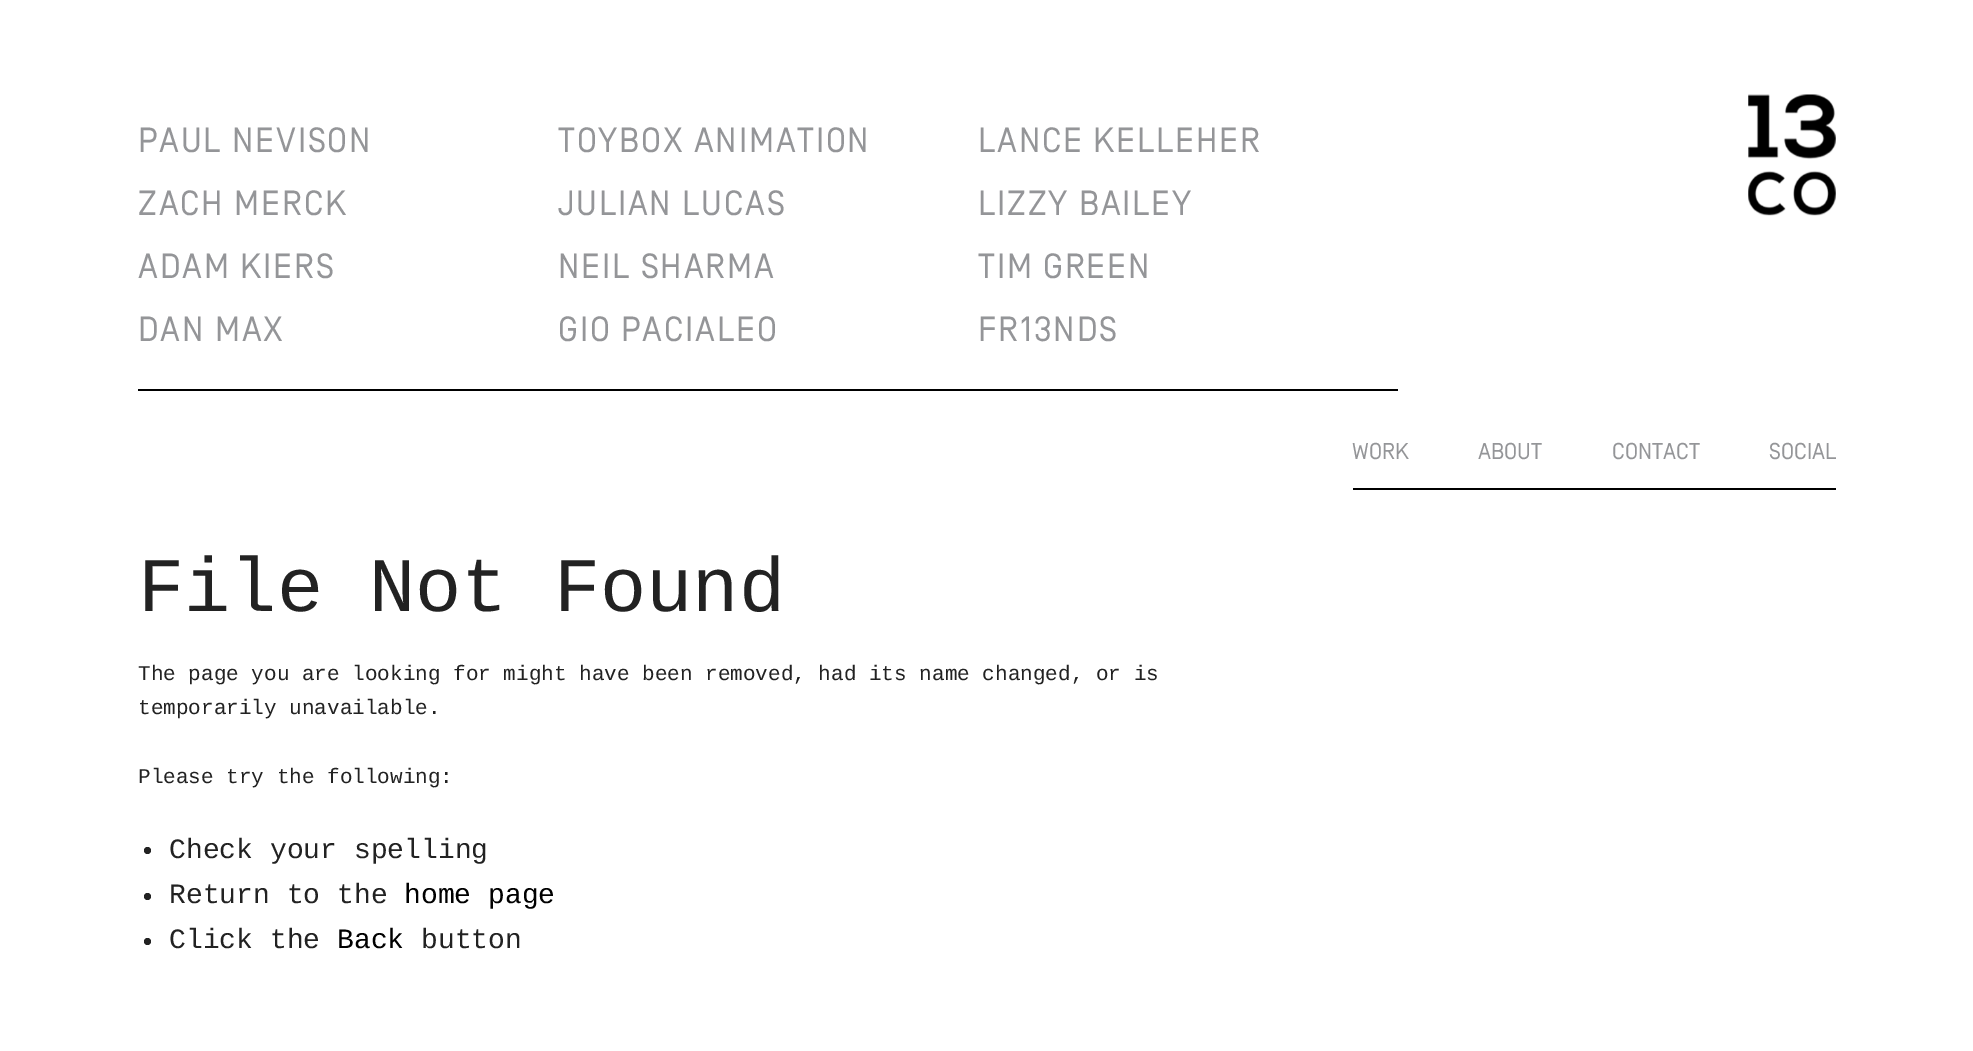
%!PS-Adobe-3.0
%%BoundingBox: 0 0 1973 1051
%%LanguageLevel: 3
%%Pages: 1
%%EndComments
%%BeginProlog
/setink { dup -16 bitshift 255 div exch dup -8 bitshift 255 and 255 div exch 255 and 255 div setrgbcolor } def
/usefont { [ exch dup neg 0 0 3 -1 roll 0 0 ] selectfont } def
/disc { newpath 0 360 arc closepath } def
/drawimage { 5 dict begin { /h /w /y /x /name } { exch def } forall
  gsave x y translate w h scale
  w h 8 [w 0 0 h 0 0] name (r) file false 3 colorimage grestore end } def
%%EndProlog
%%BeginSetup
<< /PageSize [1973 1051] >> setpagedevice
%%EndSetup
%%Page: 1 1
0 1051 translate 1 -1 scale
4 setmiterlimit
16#FFFFFF setink
0 0 1973 1051 rectfill
16#000000 setink
138 389 1260 2 rectfill
/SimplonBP-Regular 35 usefont
16#949598 setink
138 152 moveto 1.75 0 (PAUL NEVISON) ashow
558 152 moveto 1.75 0 (TOYBOX ANIMATION) ashow
978 152 moveto 1.75 0 (LANCE KELLEHER) ashow
138 215 moveto 1.75 0 (ZACH MERCK) ashow
558 215 moveto 1.75 0 (JULIAN LUCAS) ashow
978 215 moveto 1.75 0 (LIZZY BAILEY) ashow
138 278 moveto 1.75 0 (ADAM KIERS) ashow
558 278 moveto 1.75 0 (NEIL SHARMA) ashow
978 278 moveto 1.75 0 (TIM GREEN) ashow
138 341 moveto 1.75 0 (DAN MAX) ashow
558 341 moveto 1.75 0 (GIO PACIALEO) ashow
978 341 moveto 1.75 0 (FR13NDS) ashow
(img1.raw) 1748 94 88 122 drawimage
16#000000 setink
1353 488 483 2 rectfill
/SimplonBP-Regular 23 usefont
16#949598 setink
[
    [(WORK) 1352 459]
    [(ABOUT) 1478 459]
    [(CONTACT) 1612 459]
    [(SOCIAL) 1769 459]
] { aload pop moveto show } forall
/LiberationMono-Regular 77 usefont
16#222222 setink
138 611 moveto (File Not Found) show
/LiberationMono-Regular 21 usefont
[
    [(The page you are looking for might have been removed, had its name changed, or is) 138 680]
    [(temporarily unavailable.) 138 714]
    [(Please try the following:) 138 783]
] { aload pop moveto show } forall
147.5 850.5 3.5 disc fill
/LiberationMono-Regular 28 usefont
169 858 moveto (Check your spelling) show
147.5 896.5 3.5 disc fill
169 903 moveto (Return to the) show
16#000000 setink
404 903 moveto (home page) show
16#222222 setink
147.5 941.5 3.5 disc fill
169 948 moveto (Click the) show
16#000000 setink
337 948 moveto (Back) show
16#222222 setink
421 948 moveto (button) show
showpage
%%EOF
